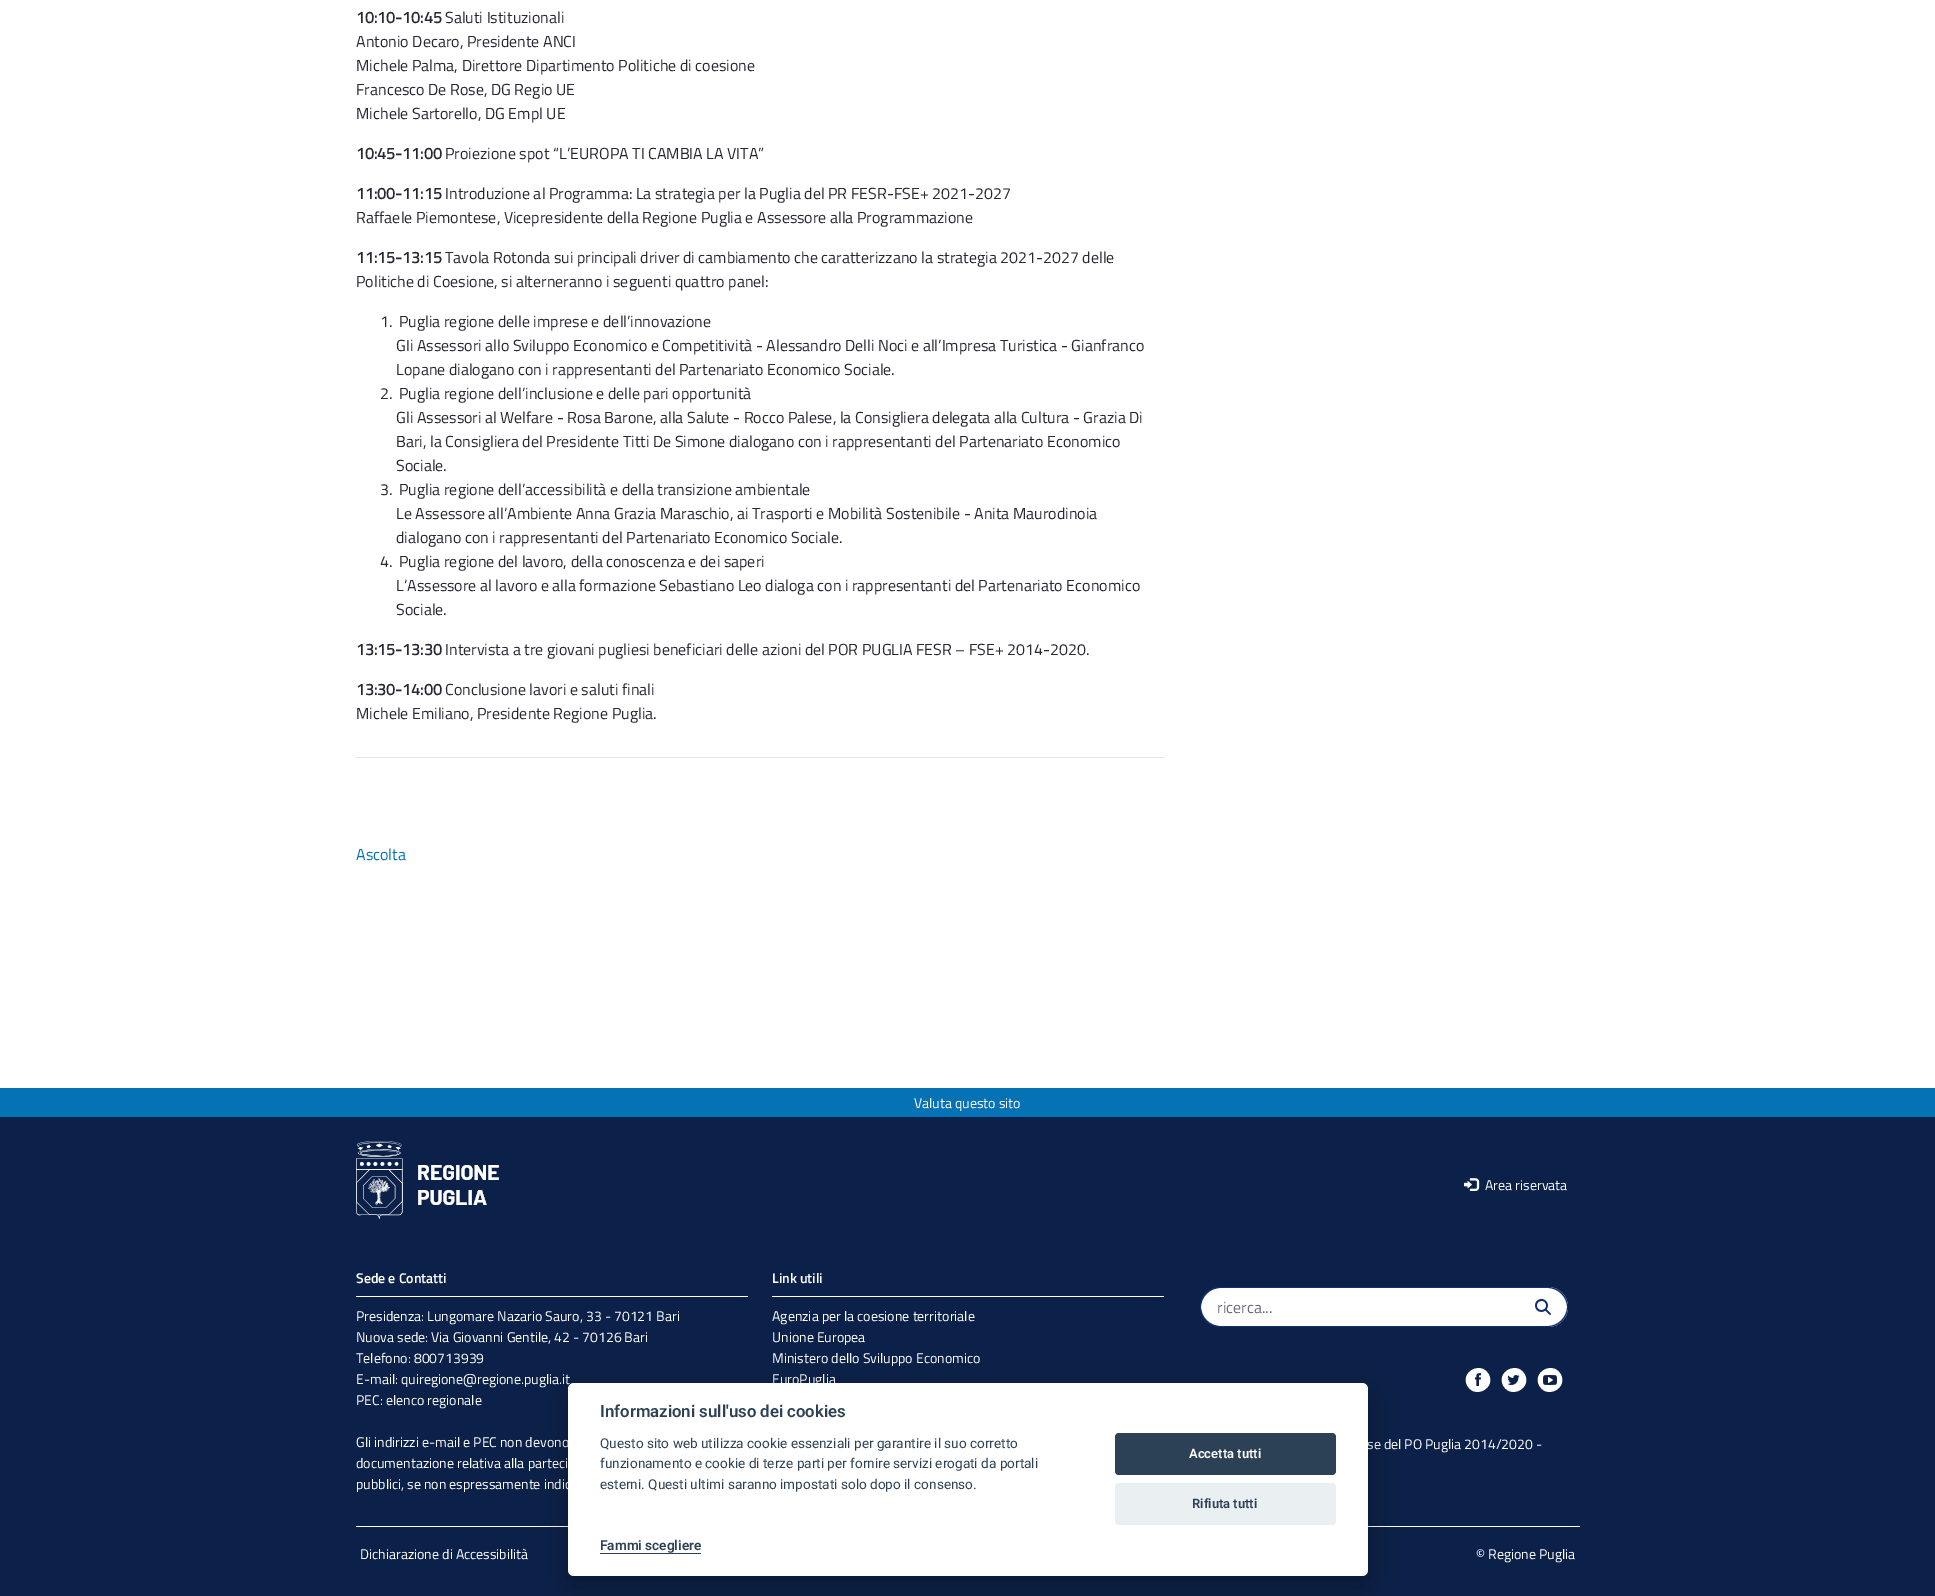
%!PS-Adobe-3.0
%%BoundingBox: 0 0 1935 1596
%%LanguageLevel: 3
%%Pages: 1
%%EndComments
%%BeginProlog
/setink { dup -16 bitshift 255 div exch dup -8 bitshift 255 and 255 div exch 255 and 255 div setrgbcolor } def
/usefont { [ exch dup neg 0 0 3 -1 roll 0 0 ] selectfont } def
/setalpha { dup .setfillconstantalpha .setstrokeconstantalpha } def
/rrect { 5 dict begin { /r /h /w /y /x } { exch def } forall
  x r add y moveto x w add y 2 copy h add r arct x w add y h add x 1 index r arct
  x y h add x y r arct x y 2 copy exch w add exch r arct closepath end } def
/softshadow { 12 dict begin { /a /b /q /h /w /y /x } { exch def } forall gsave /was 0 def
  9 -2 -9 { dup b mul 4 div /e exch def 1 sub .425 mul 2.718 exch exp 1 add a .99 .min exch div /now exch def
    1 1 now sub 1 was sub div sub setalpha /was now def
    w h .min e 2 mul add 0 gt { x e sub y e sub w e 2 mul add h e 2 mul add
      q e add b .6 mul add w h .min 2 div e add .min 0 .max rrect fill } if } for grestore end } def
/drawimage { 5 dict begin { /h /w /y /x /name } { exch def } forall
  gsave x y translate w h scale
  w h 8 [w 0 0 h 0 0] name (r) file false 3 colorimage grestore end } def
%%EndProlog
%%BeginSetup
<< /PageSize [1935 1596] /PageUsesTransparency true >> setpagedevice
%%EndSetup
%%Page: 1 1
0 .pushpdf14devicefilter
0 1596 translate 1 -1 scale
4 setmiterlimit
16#FFFFFF setink
0 0 1935 1596 rectfill
/TitilliumWeb-Bold 16 usefont
16#272833 setink
356 23 moveto (10:10-10:45) show
/TitilliumWeb-Regular 16 usefont
[
    [(Saluti Istituzionali) 445 23]
    [(Antonio Decaro, Presidente ANCI) 356 47]
    [(Michele Palma, Direttore Dipartimento Politiche di coesione) 356 71]
    [(Francesco De Rose, DG Regio UE) 356 95]
    [(Michele Sartorello, DG Empl UE) 356 119]
] { aload pop moveto show } forall
/TitilliumWeb-Bold 16 usefont
356 159 moveto (10:45-11:00) show
/TitilliumWeb-Regular 16 usefont
445 159 moveto (Proiezione spot “L’EUROPA TI CAMBIA LA VITA”) show
/TitilliumWeb-Bold 16 usefont
356 199 moveto (11:00-11:15) show
/TitilliumWeb-Regular 16 usefont
445 199 moveto (Introduzione al Programma: La strategia per la Puglia del PR FESR-FSE+ 2021-2027) show
356 223 moveto (Raffaele Piemontese, Vicepresidente della Regione Puglia e Assessore alla Programmazione) show
/TitilliumWeb-Bold 16 usefont
356 263 moveto (11:15-13:15) show
/TitilliumWeb-Regular 16 usefont
[
    [(Tavola Rotonda sui principali driver di cambiamento che caratterizzano la strategia 2021-2027 delle) 445 263]
    [(Politiche di Coesione, si alterneranno i seguenti quattro panel:) 356 287]
    [(1.) 380 327]
    [(Puglia regione delle imprese e dell’innovazione) 399 327]
    [(GIi Assessori allo Sviluppo Economico e Competitività - Alessandro Delli Noci e all’Impresa Turistica - Gianfranco) 396 351]
    [(Lopane dialogano con i rappresentanti del Partenariato Economico Sociale.) 396 375]
    [(2.) 380 399]
    [(Puglia regione dell’inclusione e delle pari opportunità) 399 399]
    [(Gli Assessori al Welfare - Rosa Barone, alla Salute - Rocco Palese, la Consigliera delegata alla Cultura - Grazia Di) 396 423]
    [(Bari, la Consigliera del Presidente Titti De Simone dialogano con i rappresentanti del Partenariato Economico) 396 447]
    [(Sociale.) 396 471]
    [(3.) 380 495]
    [(Puglia regione dell’accessibilità e della transizione ambientale) 399 495]
    [(Le Assessore all’Ambiente Anna Grazia Maraschio, ai Trasporti e Mobilità Sostenibile - Anita Maurodinoia) 396 519]
    [(dialogano con i rappresentanti del Partenariato Economico Sociale.) 396 543]
    [(4.) 380 567]
    [(Puglia regione del lavoro, della conoscenza e dei saperi) 399 567]
    [(L’Assessore al lavoro e alla formazione Sebastiano Leo dialoga con i rappresentanti del Partenariato Economico) 396 591]
    [(Sociale.) 396 615]
] { aload pop moveto show } forall
/TitilliumWeb-Bold 16 usefont
356 655 moveto (13:15-13:30) show
/TitilliumWeb-Regular 16 usefont
445 655 moveto (Intervista a tre giovani pugliesi beneficiari delle azioni del POR PUGLIA FESR – FSE+ 2014-2020.) show
/TitilliumWeb-Bold 16 usefont
356 695 moveto (13:30-14:00) show
/TitilliumWeb-Regular 16 usefont
445 695 moveto (Conclusione lavori e saluti finali) show
356 719 moveto (Michele Emiliano, Presidente Regione Puglia.) show
16#E6E6E6 setink
356 757 808 1 rectfill
16#0572B5 setink
356 860 moveto (Ascolta) show
16#0C2149 setink
0 1117 1935 479 rectfill
16#0572B5 setink
0 1088 1935 29 rectfill
/TitilliumWeb-Regular 14 usefont
16#FFFFFF setink
914 1108 moveto (Valuta questo sito) show
(img1.raw) 356 1141 143 78 drawimage
(img2.raw) 1464 1178 16 13 drawimage
1485 1190 moveto (Area riservata) show
/TitilliumWeb-SemiBold 14 usefont
356 1283 moveto (Sede e Contatti) show
356 1296 392 1 rectfill
/TitilliumWeb-Regular 14 usefont
[
    [(Presidenza: Lungomare Nazario Sauro, 33 - 70121 Bari) 356 1321]
    [(Nuova sede: Via Giovanni Gentile, 42 - 70126 Bari) 356 1342]
    [(Telefono: 800713939) 356 1363]
    [(E-mail: quiregione@regione.puglia.it) 356 1384]
    [(PEC: elenco regionale) 356 1405]
    [(Gli indirizzi e-mail e PEC non devono) 356 1447]
    [(documentazione relativa alla parteci) 356 1468]
    [(pubblici, se non espressamente indic) 356 1489]
] { aload pop moveto show } forall
/TitilliumWeb-SemiBold 14 usefont
772 1283 moveto (Link utili) show
772 1296 392 1 rectfill
/TitilliumWeb-Regular 14 usefont
[
    [(Agenzia per la coesione territoriale) 772 1321]
    [(Unione Europea) 772 1342]
    [(Ministero dello Sviluppo Economico) 772 1363]
    [(EuroPuglia) 772 1384]
] { aload pop moveto show } forall
1220 1288 moveto 1519 1288 lineto 1519 1326 lineto 1220 1326 lineto 1209.5 1326 1201 1317.5 1201 1307 curveto 1201 1296.5 1209.5 1288 1220 1288 curveto closepath fill
16#11306D setink
1220 1287 moveto 1519 1287 lineto 1519 1327 lineto 1220 1327 lineto 1209 1327 1200 1318 1200 1307 curveto 1200 1296 1209 1287 1220 1287 curveto closepath 1220 1288 moveto 1519 1288 lineto 1519 1326 lineto 1220 1326 lineto 1210 1326 1201 1317 1201 1307 curveto 1201 1297 1210 1288 1220 1288 curveto closepath eofill
/TitilliumWeb-Regular 16 usefont
16#6B6C7E setink
1217 1313 moveto (ricerca...) show
16#FFFFFF setink
1519 1287 moveto 1548 1287 lineto 1559 1287 1568 1296 1568 1307 curveto 1568 1318 1559 1327 1548 1327 curveto 1519 1327 lineto closepath fill
16#11306D setink
1519 1287 moveto 1548 1287 lineto 1559 1287 1568 1296 1568 1307 curveto 1568 1318 1559 1327 1548 1327 curveto 1519 1327 lineto closepath 1519 1288 moveto 1548 1288 lineto 1558 1288 1567 1297 1567 1307 curveto 1567 1317 1558 1326 1548 1326 curveto 1519 1326 lineto closepath eofill
(img3.raw) 1535 1299 16 16 drawimage
16#FFFFFF setink
1488.5 1374 moveto 1496.5 1387.5 1475.5 1399.5 1467.5 1386 curveto 1459.5 1372.5 1480.5 1360.5 1488.5 1374 curveto closepath fill
(img4.raw) 1475 1373 6 13 drawimage
1524.5 1374 moveto 1532.5 1387.5 1511.5 1399.5 1503.5 1386 curveto 1495.5 1372.5 1516.5 1360.5 1524.5 1374 curveto closepath fill
(img5.raw) 1507 1375 13 10 drawimage
1560.5 1374 moveto 1568.5 1387.5 1547.5 1399.5 1539.5 1386 curveto 1531.5 1372.5 1552.5 1360.5 1560.5 1374 curveto closepath fill
(img6.raw) 1543 1375 14 10 drawimage
/TitilliumWeb-Regular 14 usefont
1367 1449 moveto (se del PO Puglia 2014/2020 -) show
356 1526 1224 1 rectfill
360 1559 moveto (Dichiarazione di Accessibilità) show
1476 1559 moveto (© Regione Puglia) show
16#020203 setink
568 1393 800 193 6 15 0.28 softshadow
16#FFFFFF setink
568 1383 800 193 6 rrect fill
/Roboto-SemiBold 16.75 usefont
16#2D4156 setink
600 1417 moveto (Informazioni sull'uso dei cookies) show
/Roboto-Regular 13.6 usefont
[
    [(Questo sito web utilizza cookie essenziali per garantire il suo corretto) 600 1448]
    [(funzionamento e cookie di terze parti per fornire servizi erogati da portali) 600 1468]
    [(esterni. Questi ultimi saranno impostati solo dopo il consenso.) 600 1489]
] { aload pop moveto show } forall
/Roboto-SemiBold 13.6 usefont
600 1550 moveto (Fammi scegliere) show
600 1553 101 1 rectfill
1115 1433 221 42 4 rrect fill
/Roboto-SemiBold 13 usefont
16#FFFFFF setink
1189 1458 moveto (Accetta tutti) show
16#EAEFF2 setink
1115 1483 221 42 4 rrect fill
16#2D4156 setink
1192 1508 moveto (Rifiuta tutti) show
.poppdf14devicefilter showpage
%%EOF
